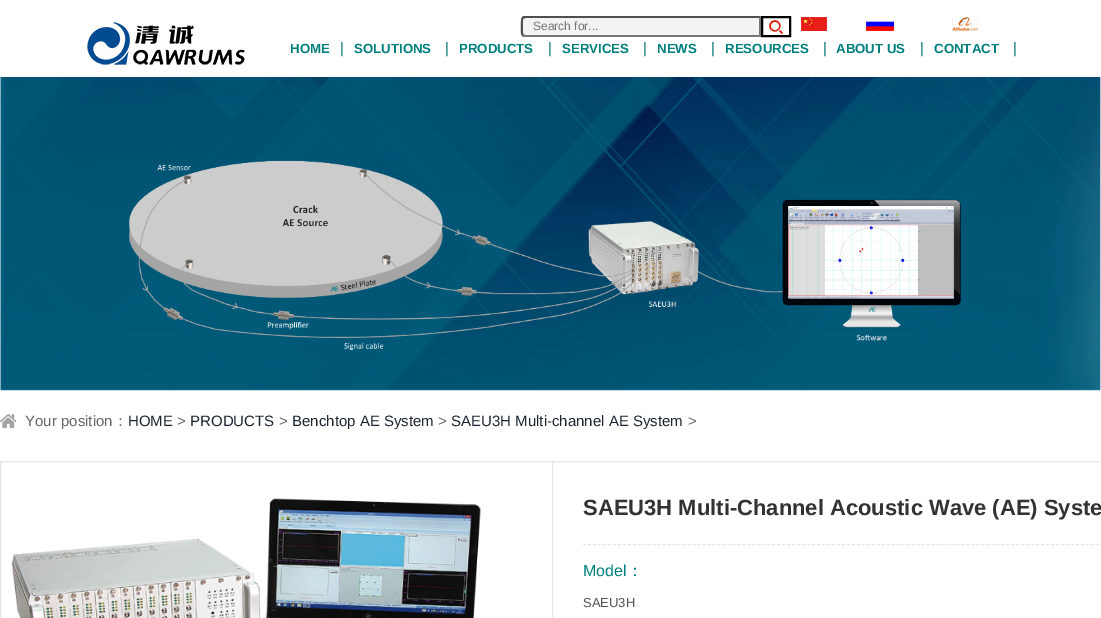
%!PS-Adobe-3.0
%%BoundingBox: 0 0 1101 618
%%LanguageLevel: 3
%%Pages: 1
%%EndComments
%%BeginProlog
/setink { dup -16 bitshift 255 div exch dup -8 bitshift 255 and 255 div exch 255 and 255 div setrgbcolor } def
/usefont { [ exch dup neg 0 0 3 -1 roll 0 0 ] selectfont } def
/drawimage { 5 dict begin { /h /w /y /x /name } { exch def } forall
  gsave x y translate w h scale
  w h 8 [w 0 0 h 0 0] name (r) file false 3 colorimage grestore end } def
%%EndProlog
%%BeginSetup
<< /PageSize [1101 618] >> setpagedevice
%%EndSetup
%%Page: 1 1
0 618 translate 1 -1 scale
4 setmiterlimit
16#FFFFFF setink
0 0 1101 618 rectfill
(img1.raw) 87 22 158 43 drawimage
16#F3F3F3 setink
525 16 moveto 761 16 lineto 761 37 lineto 525 37 lineto 523 37 521 35 521 33 curveto 521 20 lineto 521 18 523 16 525 16 curveto closepath fill
16#4F4F4F setink
525 16 moveto 524 16 523 16 522 17 curveto 524 19 lineto 525 18 lineto 759 18 lineto 761 16 lineto closepath fill
16#767676 setink
761 16 moveto 759 18 lineto 759 35 lineto 761 37 lineto closepath fill
761 37 moveto 759 35 lineto 525 35 lineto 524 34 lineto 522 36 lineto 523 37 524 37 525 37 curveto closepath fill
16#4F4F4F setink
521 21 moveto 521 19.5 521.5 18 522 17 curveto 523.5 18.5 lineto 522.5 20 523 25 523 26.5 curveto 523 28 522.5 33 523.5 34.5 curveto 522 36 lineto 520 33 521 24 521 21 curveto closepath fill
/LiberationSans-Regular 12 usefont
16#757575 setink
533 30 moveto (Search for...) show
(img2.raw) 769 20 14 14 drawimage
16#000000 setink
2 setlinewidth
762 17 28 19 rectstroke
(img3.raw) 801 17 26 14 drawimage
(img4.raw) 866 21 28 10 drawimage
(img5.raw) 952 17 26 14 drawimage
/LiberationSans-Bold 13.25 usefont
16#007F7F setink
290 53 moveto (HOME) show
/LiberationSans-Regular 15 usefont
16#0C7979 setink
340 53 moveto (|) show
/LiberationSans-Bold 13.25 usefont
16#007F7F setink
354 53 moveto (SOLUTIONS) show
/LiberationSans-Regular 15 usefont
16#0C7979 setink
445 53 moveto (|) show
/LiberationSans-Bold 13.25 usefont
16#007F7F setink
459 53 moveto (PRODUCTS) show
/LiberationSans-Regular 15 usefont
16#0C7979 setink
548 53 moveto (|) show
/LiberationSans-Bold 13.25 usefont
16#007F7F setink
562 53 moveto (SERVICES) show
/LiberationSans-Regular 15 usefont
16#0C7979 setink
643 53 moveto (|) show
/LiberationSans-Bold 13.25 usefont
16#007F7F setink
657 53 moveto (NEWS) show
/LiberationSans-Regular 15 usefont
16#0C7979 setink
711 53 moveto (|) show
/LiberationSans-Bold 13.25 usefont
16#007F7F setink
725 53 moveto (RESOURCES) show
/LiberationSans-Regular 15 usefont
16#0C7979 setink
823 53 moveto (|) show
/LiberationSans-Bold 13.25 usefont
16#007F7F setink
836 53 moveto (ABOUT US) show
/LiberationSans-Regular 15 usefont
16#0C7979 setink
920 53 moveto (|) show
/LiberationSans-Bold 13.25 usefont
16#007F7F setink
934 53 moveto (CONTACT) show
/LiberationSans-Regular 15 usefont
16#0C7979 setink
1013 53 moveto (|) show
(img6.raw) 0 77 1101 314 drawimage
(img7.raw) 0 414 16 14 drawimage
16#666666 setink
25 426 moveto (Your position) show
/WenQuanYiZenHei-Medium 15 usefont
113 426 moveto (：) show
/LiberationSans-Regular 15 usefont
16#1B242F setink
128 426 moveto (HOME) show
16#666666 setink
177 426 moveto (>) show
16#1B242F setink
190 426 moveto (PRODUCTS) show
16#666666 setink
279 426 moveto (>) show
16#1B242F setink
292 426 moveto (Benchtop AE System) show
16#666666 setink
438 426 moveto (>) show
16#1B242F setink
451 426 moveto (SAEU3H Multi-channel AE System) show
16#666666 setink
688 426 moveto (>) show
16#E6E6E6 setink
1 setlinewidth
0.5 461.5 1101 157 rectstroke
(img8.raw) 11 498 470 120 drawimage
552 462 1 156 rectfill
[3 1.98] 0 setdash
583 544.5 moveto 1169 544.5 lineto stroke
/LiberationSans-Bold 22 usefont
16#333333 setink
583 515 moveto (SAEU3H Multi-Channel Acoustic Wave \(AE\) Syste) show
/LiberationSans-Regular 16 usefont
16#007F7F setink
583 576 moveto (Model) show
/WenQuanYiZenHei-Medium 16 usefont
627 576 moveto (：) show
/LiberationSans-Regular 13 usefont
16#555555 setink
583 607 moveto (SAEU3H) show
showpage
%%EOF
